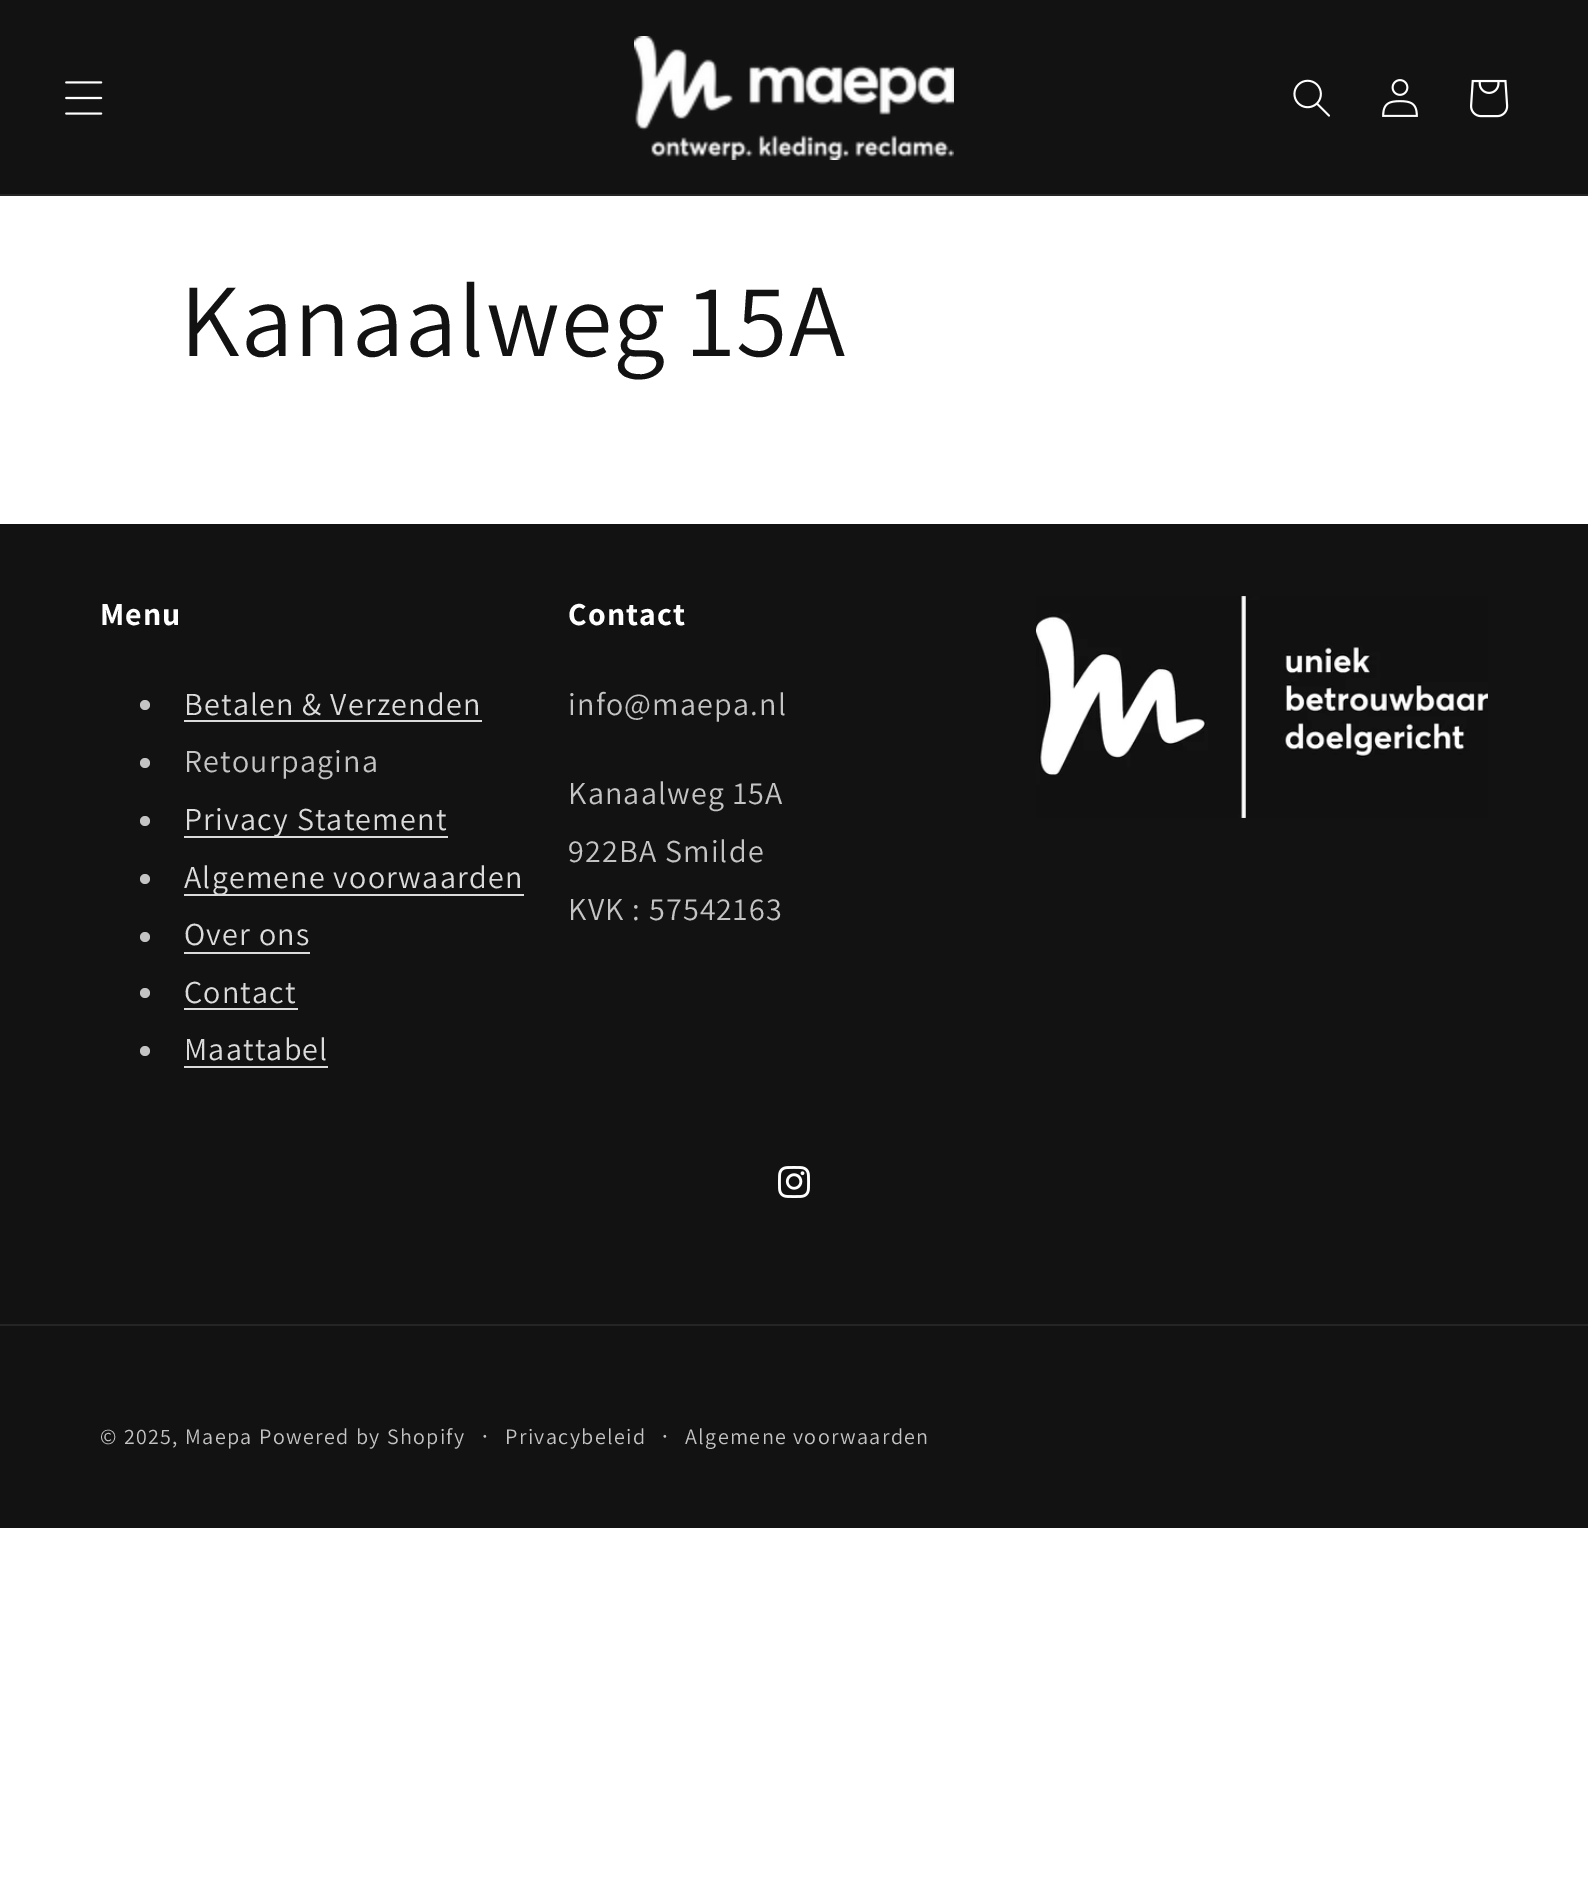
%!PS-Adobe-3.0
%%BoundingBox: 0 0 1588 1891
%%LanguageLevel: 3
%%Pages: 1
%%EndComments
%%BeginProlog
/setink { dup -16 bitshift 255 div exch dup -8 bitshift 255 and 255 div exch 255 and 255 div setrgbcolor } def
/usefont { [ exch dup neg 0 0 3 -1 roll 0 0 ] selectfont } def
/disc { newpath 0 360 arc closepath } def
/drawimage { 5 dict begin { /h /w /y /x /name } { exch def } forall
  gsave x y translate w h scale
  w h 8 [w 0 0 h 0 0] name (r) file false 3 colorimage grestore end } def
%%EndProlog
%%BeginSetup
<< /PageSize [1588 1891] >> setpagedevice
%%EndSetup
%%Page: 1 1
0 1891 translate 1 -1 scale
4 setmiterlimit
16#FFFFFF setink
0 0 1588 1891 rectfill
16#121212 setink
0 0 1588 194 rectfill
16#252525 setink
0 194 1588 2 rectfill
(img1.raw) 65 81 38 34 drawimage
(img2.raw) 634 36 320 124 drawimage
(img3.raw) 1293 79 37 38 drawimage
(img4.raw) 1382 79 36 38 drawimage
(img5.raw) 1470 79 39 39 drawimage
/Assistant-Regular 104 usefont
16#121212 setink
180 356 moveto 1.2 0 (Kanaalweg 15A) ashow
0 524 1588 1004 rectfill
/Assistant-Bold 32 usefont
16#FFFFFF setink
100 625 moveto 1.2 0 (Menu) ashow
16#C4C4C4 setink
145 705 5 disc fill
/Assistant-Regular 32 usefont
16#DBDBDB setink
184 715 moveto 1.2 0 (Betalen & Verzenden) ashow
184 720 298 2 rectfill
16#C4C4C4 setink
145 763 5 disc fill
184 772 moveto 1.2 0 (Retourpagina) ashow
145 821 5 disc fill
16#DBDBDB setink
184 836 264 2 rectfill
184 830 moveto 1.2 0 (Privacy Statement) ashow
16#C4C4C4 setink
145 879 5 disc fill
16#DBDBDB setink
184 894 340 2 rectfill
184 888 moveto 1.2 0 (Algemene voorwaarden) ashow
16#C4C4C4 setink
145 937 5 disc fill
16#DBDBDB setink
184 945 moveto 1.2 0 (Over ons) ashow
184 952 126 2 rectfill
16#C4C4C4 setink
145 993 5 disc fill
16#DBDBDB setink
184 1003 moveto 1.2 0 (Contact) ashow
184 1008 114 2 rectfill
16#C4C4C4 setink
145 1051 5 disc fill
16#DBDBDB setink
184 1060 moveto 1.2 0 (Maattabel) ashow
184 1066 144 2 rectfill
/Assistant-Bold 32 usefont
16#FFFFFF setink
568 625 moveto 1.2 0 (Contact) ashow
/Assistant-Regular 32 usefont
16#C4C4C4 setink
568 715 moveto 1.2 0 (info@maepa.nl) ashow
568 804 moveto 1.2 0 (Kanaalweg 15A) ashow
568 862 moveto 1.2 0 (922BA Smilde) ashow
568 920 moveto 1.2 0 (KVK : 57542163) ashow
(img6.raw) 1036 596 452 222 drawimage
(img7.raw) 778 1166 32 32 drawimage
16#252525 setink
0 1324 1588 2 rectfill
/Assistant-Regular 22 usefont
16#C4C4C4 setink
100 1444 moveto 1.4 0 (© 2025, Maepa) ashow
259 1444 moveto 1.4 0 (Powered by Shopify) ashow
/Assistant-Regular 24 usefont
482 1444 moveto 1.4 0 (·) ashow
/Assistant-Regular 22 usefont
505 1444 moveto 1.4 0 (Privacybeleid) ashow
/Assistant-Regular 24 usefont
662 1444 moveto 1.4 0 (·) ashow
/Assistant-Regular 22 usefont
685 1444 moveto 1.4 0 (Algemene voorwaarden) ashow
showpage
%%EOF
